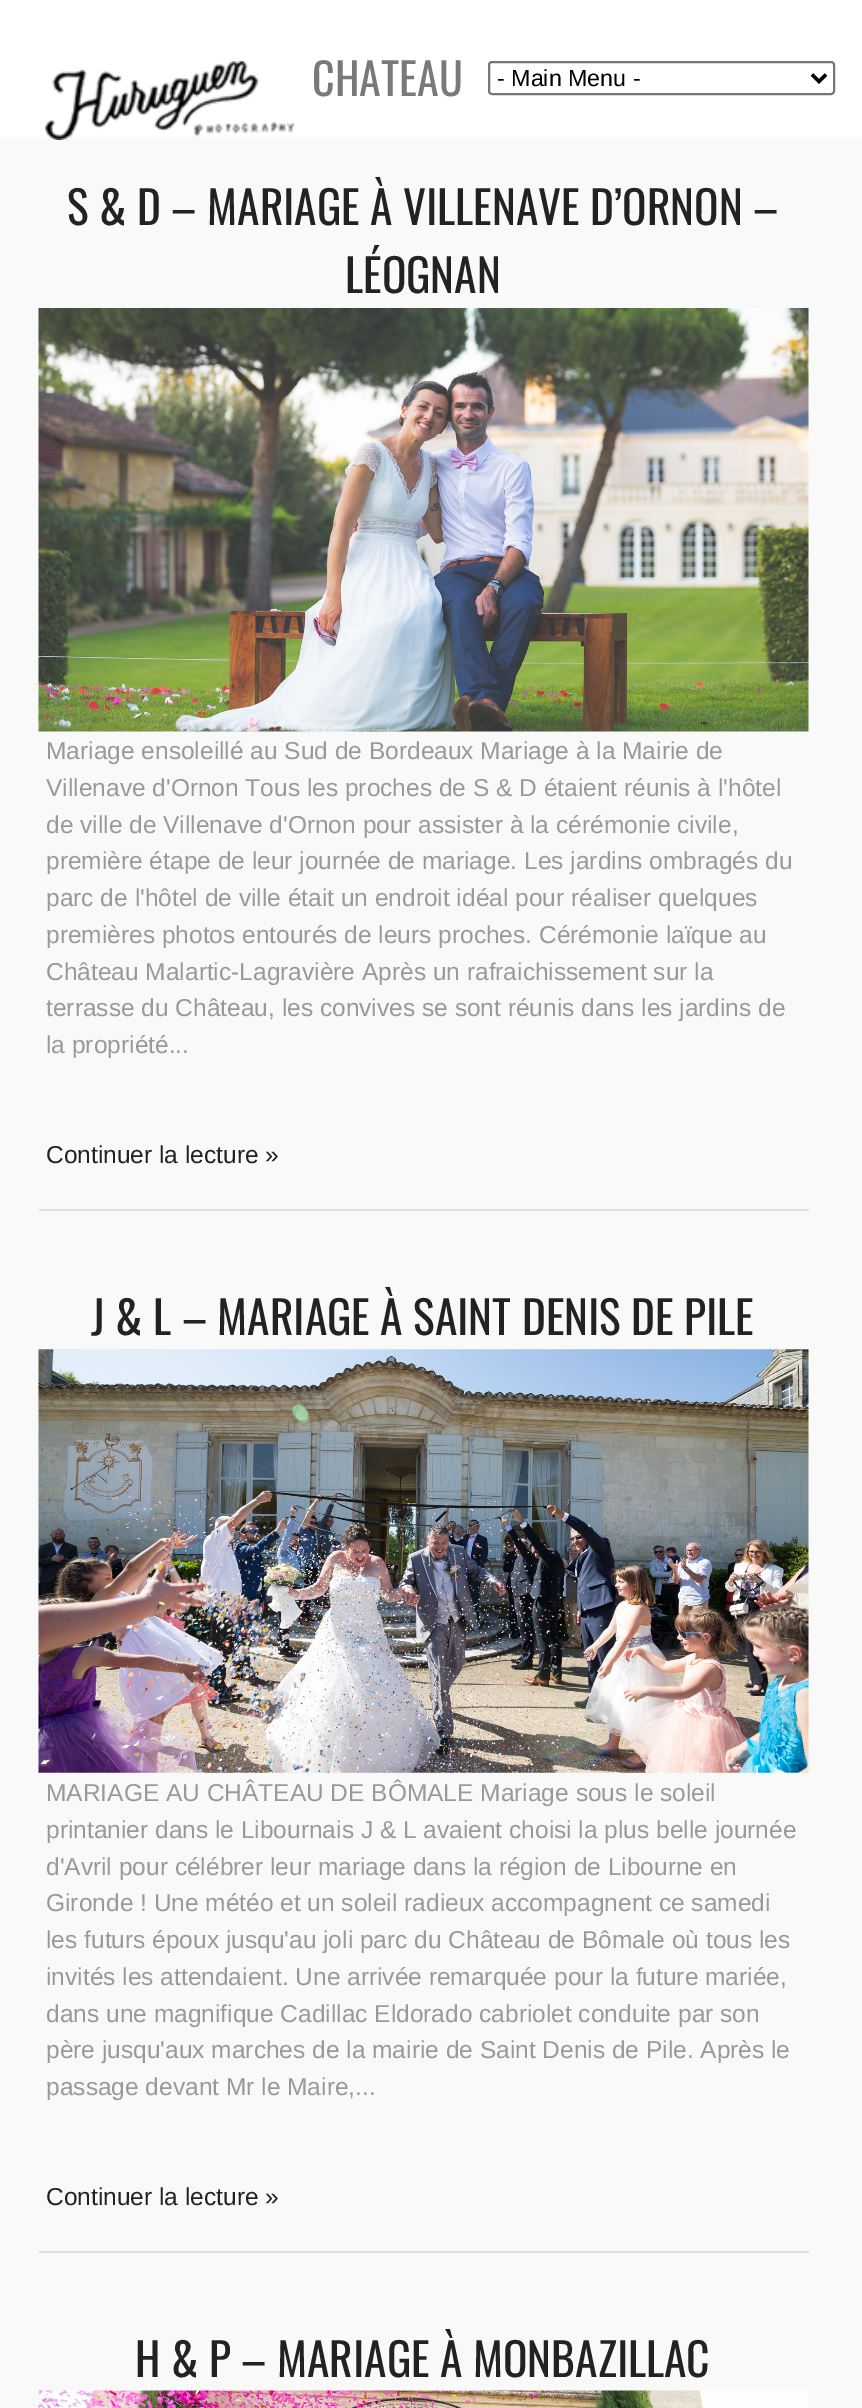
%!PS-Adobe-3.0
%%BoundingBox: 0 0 862 2408
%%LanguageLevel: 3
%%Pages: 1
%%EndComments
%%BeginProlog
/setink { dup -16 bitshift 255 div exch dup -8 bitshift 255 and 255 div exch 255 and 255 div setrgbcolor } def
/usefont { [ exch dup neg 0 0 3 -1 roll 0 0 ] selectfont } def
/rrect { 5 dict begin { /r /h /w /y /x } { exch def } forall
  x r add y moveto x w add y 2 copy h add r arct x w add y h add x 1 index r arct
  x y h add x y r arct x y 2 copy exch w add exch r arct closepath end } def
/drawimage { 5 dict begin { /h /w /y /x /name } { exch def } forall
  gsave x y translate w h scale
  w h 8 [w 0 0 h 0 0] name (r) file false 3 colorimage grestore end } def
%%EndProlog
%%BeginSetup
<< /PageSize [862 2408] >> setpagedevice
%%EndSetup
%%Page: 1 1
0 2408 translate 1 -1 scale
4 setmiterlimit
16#FFFFFF setink
0 0 862 2408 rectfill
/Oswald-Regular 44 usefont
16#797979 setink
312 96 moveto (CHATEAU) show
16#F9F9F9 setink
0 137 862 2271 rectfill
(img1.raw) 45 61 249 79 drawimage
16#767676 setink
2 setlinewidth
489 62 345 32 3 rrect stroke
16#000000 setink
3.5 setlinewidth
812 74.5 moveto 819 81.5 lineto 826 74.5 lineto stroke
/LiberationSans-Regular 23.25 usefont
497 86 moveto (- Main Menu -) show
16#E0E0E0 setink
39 1209 770 2 rectfill
/Oswald-Regular 45.5 usefont
16#222222 setink
67 225 moveto (S & D – MARIAGE À VILLENAVE D’ORNON –) show
345 293 moveto (LÉOGNAN) show
(img2.raw) 38 308 771 424 drawimage
/LiberationSans-Regular 24.5 usefont
16#999999 setink
[
    [(Mariage ensoleillé au Sud de Bordeaux Mariage à la Mairie de) 46 759]
    [(Villenave d'Ornon Tous les proches de S & D étaient réunis à l'hôtel) 46 796]
    [(de ville de Villenave d'Ornon pour assister à la cérémonie civile,) 46 833]
    [(première étape de leur journée de mariage. Les jardins ombragés du) 46 869]
    [(parc de l'hôtel de ville était un endroit idéal pour réaliser quelques) 46 906]
    [(premières photos entourés de leurs proches. Cérémonie laïque au) 46 943]
    [(Château Malartic-Lagravière Après un rafraichissement sur la) 46 980]
    [(terrasse du Château, les convives se sont réunis dans les jardins de) 46 1016]
    [(la propriété...) 46 1053]
] { aload pop moveto show } forall
16#222222 setink
46 1163 moveto (Continuer la lecture ») show
16#E0E0E0 setink
39 2251 770 2 rectfill
/Oswald-Regular 45.5 usefont
16#222222 setink
91 1335 moveto (J & L – MARIAGE À SAINT DENIS DE PILE) show
(img3.raw) 38 1349 771 424 drawimage
/LiberationSans-Regular 24.5 usefont
16#999999 setink
[
    [(MARIAGE AU CHÂTEAU DE BÔMALE Mariage sous le soleil) 46 1801]
    [(printanier dans le Libournais J & L avaient choisi la plus belle journée) 46 1838]
    [(d'Avril pour célébrer leur mariage dans la région de Libourne en) 46 1875]
    [(Gironde ! Une météo et un soleil radieux accompagnent ce samedi) 46 1911]
    [(les futurs époux jusqu'au joli parc du Château de Bômale où tous les) 46 1948]
    [(invités les attendaient. Une arrivée remarquée pour la future mariée,) 46 1985]
    [(dans une magnifique Cadillac Eldorado cabriolet conduite par son) 46 2022]
    [(père jusqu'aux marches de la mairie de Saint Denis de Pile. Après le) 46 2058]
    [(passage devant Mr le Maire,...) 46 2095]
] { aload pop moveto show } forall
16#222222 setink
46 2205 moveto (Continuer la lecture ») show
/Oswald-Regular 45.5 usefont
135 2377 moveto (H & P – MARIAGE À MONBAZILLAC) show
(img4.raw) 38 2390 770 18 drawimage
showpage
%%EOF
